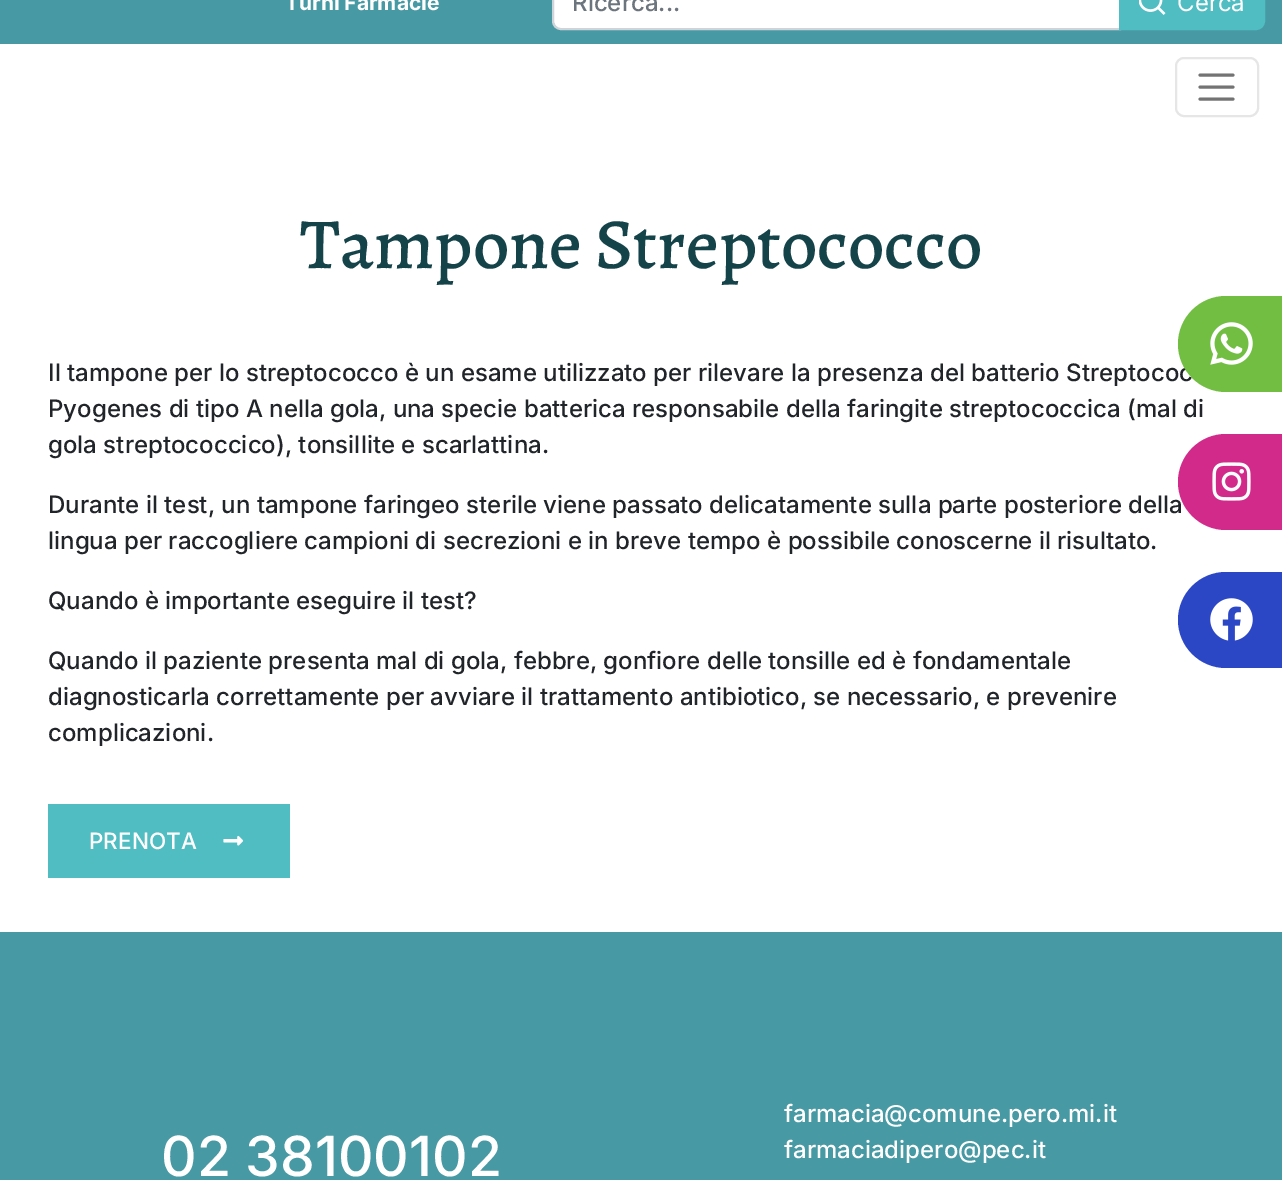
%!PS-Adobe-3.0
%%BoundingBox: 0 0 1282 1180
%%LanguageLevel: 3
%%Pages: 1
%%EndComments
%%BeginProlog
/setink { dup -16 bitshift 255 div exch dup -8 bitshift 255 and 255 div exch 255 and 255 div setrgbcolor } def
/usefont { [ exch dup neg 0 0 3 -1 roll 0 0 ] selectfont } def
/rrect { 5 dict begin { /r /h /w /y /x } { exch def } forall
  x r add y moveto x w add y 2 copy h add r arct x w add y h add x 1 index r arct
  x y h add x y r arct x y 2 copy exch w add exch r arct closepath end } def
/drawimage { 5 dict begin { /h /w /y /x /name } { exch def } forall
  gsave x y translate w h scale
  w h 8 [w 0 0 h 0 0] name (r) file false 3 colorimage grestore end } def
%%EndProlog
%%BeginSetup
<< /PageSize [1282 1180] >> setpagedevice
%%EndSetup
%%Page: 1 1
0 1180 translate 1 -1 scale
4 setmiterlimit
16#FFFFFF setink
0 0 1282 1180 rectfill
16#4799A4 setink
0 0 1282 44 rectfill
/Inter-Bold 21 usefont
16#FFFFFF setink
285 10 moveto (Turni Farmacie) show
562 -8 moveto 1119 -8 lineto 1119 29 lineto 562 29 lineto 557.5 29 554 25.5 554 21 curveto 554 0 lineto 554 -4.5 557.5 -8 562 -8 curveto closepath fill
16#CED4DA setink
2 setlinewidth
561 -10 moveto 1120 -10 lineto 1120 29 lineto 561 29 lineto 556.5 29 553 25.5 553 21 curveto 553 -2 lineto 553 -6.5 556.5 -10 561 -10 curveto closepath stroke
/Inter-Medium 24 usefont
16#6C757D setink
572 11 moveto (Ricerca...) show
16#50BDC3 setink
1120 -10 moveto 1256 -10 lineto 1260.5 -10 1264 -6.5 1264 -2 curveto 1264 21 lineto 1264 25.5 1260.5 29 1256 29 curveto 1120 29 lineto closepath gsave fill grestore
stroke
(img1.raw) 1139 0 27 15 drawimage
/Inter-Regular 24 usefont
16#FFFFFF setink
1177 11 moveto (Cerca) show
16#E6E6E6 setink
1176 58 82 58 8 rrect stroke
16#737373 setink
3 setlinewidth
1 setlinecap
1200 75 moveto 1233 75 lineto 1200 87 moveto 1233 87 lineto 1200 99 moveto 1233 99 lineto stroke
/Alegreya-Medium 72 usefont
16#14434A setink
300 268 moveto (Tampone Streptococco) show
/Inter-Medium 24 usefont
16#212529 setink
[
    [(Il tampone per lo streptococco è un esame utilizzato per rilevare la presenza del batterio Streptococ) 48 381]
    [(Pyogenes di tipo A nella gola, una specie batterica responsabile della faringite streptococcica \(mal di) 48 417]
    [(gola streptococcico\), tonsillite e scarlattina.) 48 453]
    [(Durante il test, un tampone faringeo sterile viene passato delicatamente sulla parte posteriore della) 48 513]
    [(lingua per raccogliere campioni di secrezioni e in breve tempo è possibile conoscerne il risultato.) 48 549]
    [(Quando è importante eseguire il test?) 48 609]
    [(Quando il paziente presenta mal di gola, febbre, gonfiore delle tonsille ed è fondamentale) 48 669]
    [(diagnosticarla correttamente per avviare il trattamento antibiotico, se necessario, e prevenire) 48 705]
    [(complicazioni.) 48 741]
] { aload pop moveto show } forall
16#50BDC3 setink
48 804 242 74 rectfill
/Inter-Medium 22.5 usefont
16#FFFFFF setink
89 849 moveto (PRENOTA) show
(img2.raw) 223 835 21 11 drawimage
16#72BE42 setink
1226 296 moveto 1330 296 lineto 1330 392 lineto 1226 392 lineto 1199.5 392 1178 370.5 1178 344 curveto 1178 317.5 1199.5 296 1226 296 curveto closepath fill
(img3.raw) 1210 322 43 43 drawimage
16#D22A8A setink
1226 434 moveto 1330 434 lineto 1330 530 lineto 1226 530 lineto 1199.5 530 1178 508.5 1178 482 curveto 1178 455.5 1199.5 434 1226 434 curveto closepath fill
(img4.raw) 1212 462 39 39 drawimage
16#2C47C6 setink
1226 572 moveto 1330 572 lineto 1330 668 lineto 1226 668 lineto 1199.5 668 1178 646.5 1178 620 curveto 1178 593.5 1199.5 572 1226 572 curveto closepath fill
(img5.raw) 1210 598 43 43 drawimage
16#4799A4 setink
0 932 1282 248 rectfill
/Inter-Medium 55.25 usefont
16#FFFFFF setink
161 1176 moveto (02 38100102) show
/Inter-Medium 24 usefont
784 1122 moveto (farmacia@comune.pero.mi.it) show
784 1158 moveto (farmaciadipero@pec.it) show
showpage
%%EOF
